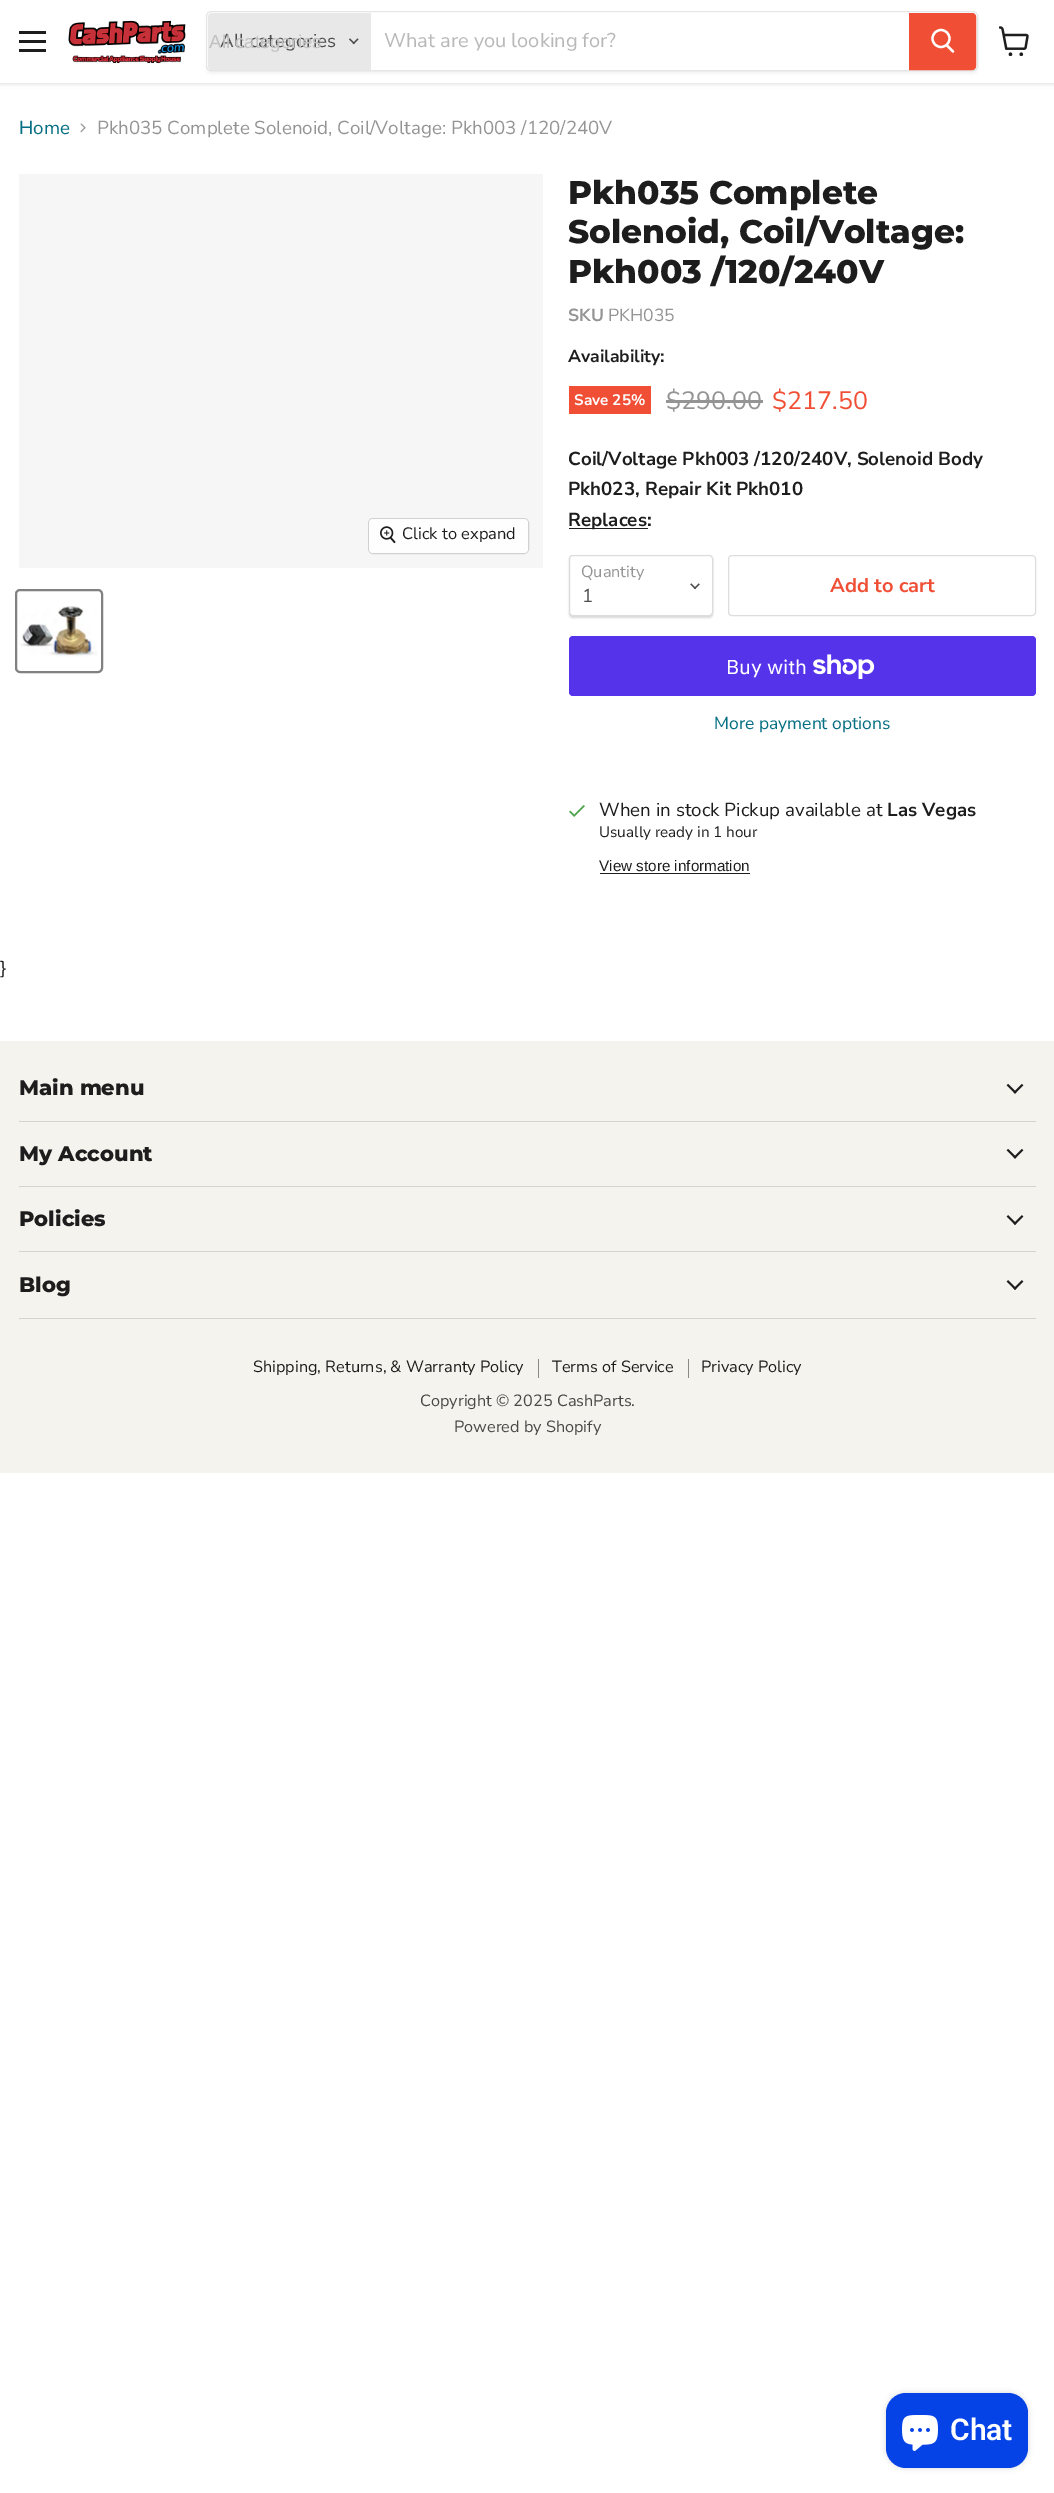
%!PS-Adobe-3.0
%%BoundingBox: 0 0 1054 2493
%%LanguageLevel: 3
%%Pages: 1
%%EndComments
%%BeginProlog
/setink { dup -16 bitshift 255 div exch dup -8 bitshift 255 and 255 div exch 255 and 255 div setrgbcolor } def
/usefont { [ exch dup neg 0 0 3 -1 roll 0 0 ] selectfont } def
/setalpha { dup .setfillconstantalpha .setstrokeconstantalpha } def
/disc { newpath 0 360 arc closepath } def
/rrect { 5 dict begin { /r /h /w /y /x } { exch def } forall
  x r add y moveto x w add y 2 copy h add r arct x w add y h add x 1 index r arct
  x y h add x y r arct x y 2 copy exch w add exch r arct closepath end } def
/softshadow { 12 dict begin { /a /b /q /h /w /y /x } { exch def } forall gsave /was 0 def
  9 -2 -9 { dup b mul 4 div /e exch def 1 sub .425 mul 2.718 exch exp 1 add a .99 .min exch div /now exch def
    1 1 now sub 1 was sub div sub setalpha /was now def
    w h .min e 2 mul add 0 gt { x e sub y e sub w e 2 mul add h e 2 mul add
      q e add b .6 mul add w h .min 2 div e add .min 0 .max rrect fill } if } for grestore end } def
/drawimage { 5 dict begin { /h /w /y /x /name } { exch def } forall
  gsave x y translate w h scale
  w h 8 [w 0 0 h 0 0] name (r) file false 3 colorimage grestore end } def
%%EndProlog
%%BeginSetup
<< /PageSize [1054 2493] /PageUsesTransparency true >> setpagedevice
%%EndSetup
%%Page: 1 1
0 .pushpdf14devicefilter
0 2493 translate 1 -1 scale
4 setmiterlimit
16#FFFFFF setink
0 0 1054 2493 rectfill
16#808080 setink
0 1 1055 83 0 2.5 0.25 softshadow
[
    [0 0 1054 83 16#FFFFFF]
    [19 31 27 3 16#1D1D1D]
    [19 40 27 3 16#1D1D1D]
    [19 49 27 3 16#1D1D1D]
] { aload pop setink rectfill } forall
(img1.raw) 68 20 118 44 drawimage
gsave
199 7 moveto 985 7 lineto 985 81 lineto 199 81 lineto closepath 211 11 moveto 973 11 lineto 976 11 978 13 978 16 curveto 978 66 lineto 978 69 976 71 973 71 curveto 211 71 lineto 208 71 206 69 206 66 curveto 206 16 lineto 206 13 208 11 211 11 curveto closepath eoclip newpath
16#808080 setink
206 14 772 60 5 2 0.11 softshadow
grestore
0.2 setalpha
16#808080 setink
206.5 11.5 771 59 4.5 rrect stroke
1 setalpha
16#E8E8E8 setink
212 13 moveto 371 13 lineto 371 70 lineto 212 70 lineto 210 70 208 68 208 66 curveto 208 17 lineto 208 15 210 13 212 13 curveto closepath fill
/NunitoSans-Regular 18.75 usefont
16#4D4D4D setink
220 47 moveto (All categories) show
/LiberationSans-Regular 18.75 usefont
16#C1C1C1 setink
209 48 moveto (All categories) show
(img2.raw) 349 38 10 7 drawimage
/NunitoSans-Regular 20 usefont
16#B8B8B8 setink
384 47 moveto (What are you looking for?) show
16#F04F36 setink
909.5 13.5 moveto 972 13.5 lineto 974 13.5 975.5 15 975.5 17 curveto 975.5 66 lineto 975.5 68 974 69.5 972 69.5 curveto 909.5 69.5 lineto closepath gsave fill grestore
stroke
16#FFFFFF setink
2.2 setlinewidth
1 setlinecap
953 51.5 moveto 947 45.5 lineto stroke
0 setlinecap
941 38.5 8.5 disc stroke
(img3.raw) 999 26 30 30 drawimage
/NunitoSans-Regular 18.75 usefont
16#046E82 setink
19 134 moveto (Home) show
(img4.raw) 80 123 6 10 drawimage
16#949494 setink
97 134 moveto (Pkh035 Complete Solenoid, Coil/Voltage: Pkh003 /120/240V) show
16#F6F6F6 setink
19 174 524 394 rectfill
16#D1D1D1 setink
1 setlinewidth
368.5 518.5 160 35 4.5 rrect stroke
0.9 setalpha
16#FFFFFF setink
369 519 159 34 4 rrect fill
1 setalpha
(img5.raw) 380 526 16 18 drawimage
/NunitoSans-Regular 16.5 usefont
16#1D1D1D setink
402 539 moveto (Click to expand) show
16#818181 setink
2 setlinewidth
16 590 86 82 4 rrect stroke
(img6.raw) 19 606 79 51 drawimage
/Montserrat-ExtraBold 32.75 usefont
16#1D1D1D setink
[
    [(Pkh035 Complete) 568 204]
    [(Solenoid, Coil/Voltage:) 568 243]
    [(Pkh003 /120/240V) 568 283]
] { aload pop moveto show } forall
/NunitoSans-Bold 17.5 usefont
16#949494 setink
568 321 moveto (SKU) show
/NunitoSans-Regular 17.5 usefont
608 321 moveto (PKH035) show
/NunitoSans-Bold 17.5 usefont
16#1D1D1D setink
568 362 moveto (Availability:) show
16#F04F36 setink
569 386 82 28 rectfill
/NunitoSans-Bold 15.25 usefont
16#FFFFFF setink
574 405 moveto (Save 25%) show
/NunitoSans-Regular 25 usefont
16#949494 setink
666 409 moveto ($290.00) show
666 400 97 3 rectfill
16#F04F36 setink
772 409 moveto ($217.50) show
/NunitoSans-Bold 18.75 usefont
16#1D1D1D setink
568 465 moveto (Coil/Voltage Pkh003 /120/240V, Solenoid Body) show
568 495 moveto (Pkh023, Repair Kit Pkh010) show
569 528 79 1 rectfill
568 526 moveto (Replaces:) show
16#000000 setink
569 556 144 62 4 1 0.15 softshadow
16#FFFFFF setink
569.5 555.5 143 60 3.5 rrect gsave fill grestore
16#DDDDDD setink
1 setlinewidth
stroke
/NunitoSans-Regular 16.25 usefont
16#949494 setink
581 577 moveto (Quantity) show
(img7.raw) 690 583 10 7 drawimage
/NunitoSans-Regular 18.75 usefont
16#4D4D4D setink
582 602 moveto (1) show
16#DDDDDD setink
728.5 555.5 307 60 3.5 rrect stroke
/NunitoSans-Bold 20 usefont
16#F04F36 setink
830 592 moveto (Add to cart) show
16#5433EB setink
569 636 467 60 4 rrect fill
/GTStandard-Regular 20 usefont
16#FFFFFF setink
726 674 moveto (Buy with) show
(img8.raw) 813 654 62 25 drawimage
/NunitoSans-Regular 17.5 usefont
16#046E82 setink
714 729 moveto (More payment options) show
(img9.raw) 569 805 16 12 drawimage
/NunitoSans-Regular 18.75 usefont
16#1D1D1D setink
599 816 moveto (When in stock Pickup available at) show
/NunitoSans-Bold 18.75 usefont
887 816 moveto (Las Vegas) show
/NunitoSans-Regular 15.25 usefont
599 837 moveto (Usually ready in 1 hour) show
/LiberationSans-Regular 15.25 usefont
599 871 moveto (View store information) show
600 873 150 1 rectfill
/NunitoSans-Regular 18.75 usefont
0 974 moveto (}) show
16#F5F3ED setink
0 1041 1054 432 rectfill
16#D5D3CE setink
19 1121 1017 1 rectfill
/Montserrat-ExtraBold 21 usefont
16#1D1D1D setink
19 1095 moveto (Main menu) show
(img10.raw) 1006 1084 18 10 drawimage
16#D5D3CE setink
19 1186 1017 1 rectfill
16#1D1D1D setink
19 1161 moveto (My Account) show
(img10.raw) 1006 1149 18 10 drawimage
16#D5D3CE setink
19 1251 1017 1 rectfill
16#1D1D1D setink
19 1226 moveto (Policies) show
(img11.raw) 1006 1215 18 10 drawimage
16#D5D3CE setink
19 1318 1017 1 rectfill
16#1D1D1D setink
19 1292 moveto (Blog) show
(img11.raw) 1006 1280 18 10 drawimage
16#898885 setink
538 1359 1 19 rectfill
/NunitoSans-Regular 16.25 usefont
16#1D1D1D setink
253 1372 moveto (Shipping, Returns, & Warranty Policy) show
16#898885 setink
688 1359 1 19 rectfill
16#1D1D1D setink
552 1372 moveto (Terms of Service) show
701 1372 moveto (Privacy Policy) show
16#484847 setink
420 1406 moveto (Copyright © 2025 CashParts.) show
454 1432 moveto (Powered by Shopify) show
16#000000 setink
886 2393 142 75 20 3 0.15 softshadow
16#0643E7 setink
886 2393 142 75 20 rrect fill
(img12.raw) 902 2415 36 36 drawimage
/Roboto-SemiBold 30 usefont
16#FFFFFF setink
950 2440 moveto (Chat) show
.poppdf14devicefilter showpage
%%EOF
